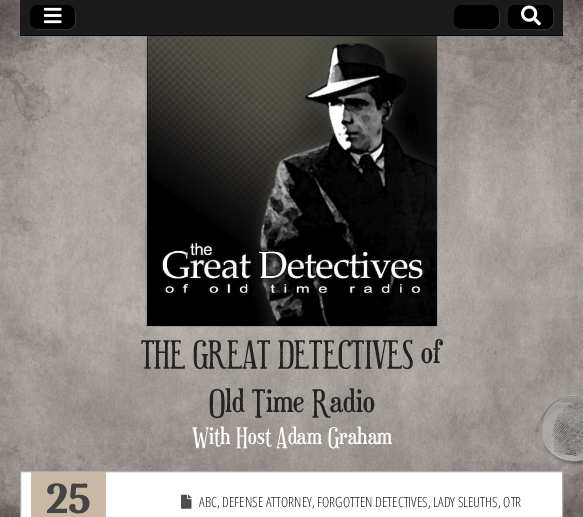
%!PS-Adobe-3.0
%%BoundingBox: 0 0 583 517
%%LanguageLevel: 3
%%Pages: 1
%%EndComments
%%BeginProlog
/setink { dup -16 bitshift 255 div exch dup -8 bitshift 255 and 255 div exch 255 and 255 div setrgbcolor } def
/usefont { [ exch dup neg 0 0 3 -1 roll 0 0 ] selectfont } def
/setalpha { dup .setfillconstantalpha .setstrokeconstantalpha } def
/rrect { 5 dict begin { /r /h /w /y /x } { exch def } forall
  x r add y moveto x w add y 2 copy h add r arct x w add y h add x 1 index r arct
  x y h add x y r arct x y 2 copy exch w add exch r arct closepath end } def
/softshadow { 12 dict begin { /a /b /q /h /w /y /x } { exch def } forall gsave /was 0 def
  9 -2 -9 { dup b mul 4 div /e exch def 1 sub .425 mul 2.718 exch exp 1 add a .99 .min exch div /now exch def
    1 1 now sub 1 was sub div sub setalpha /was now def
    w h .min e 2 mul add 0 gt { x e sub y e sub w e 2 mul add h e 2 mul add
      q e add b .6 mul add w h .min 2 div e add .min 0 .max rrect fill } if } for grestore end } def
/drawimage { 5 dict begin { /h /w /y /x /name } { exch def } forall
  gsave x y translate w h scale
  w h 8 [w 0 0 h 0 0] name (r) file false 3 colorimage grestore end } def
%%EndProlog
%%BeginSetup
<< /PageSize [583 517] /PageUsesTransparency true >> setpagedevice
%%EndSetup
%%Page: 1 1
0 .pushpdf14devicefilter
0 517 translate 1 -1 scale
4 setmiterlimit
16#FFFFFF setink
0 0 583 517 rectfill
(img1.raw) 0 0 583 517 drawimage
16#1B1B1B setink
20 0 543 35 rectfill
16#000000 setink
20 35 543 1 rectfill
16#333333 setink
31 6 45 24 8 0.5 1 softshadow
16#000000 setink
30 5 45 24 8 rrect fill
39 6 moveto 68 6 lineto 70 6 72 7 74 9 curveto 72 7 70 5 67 5 curveto 38 5 lineto 34 5 30 9 30 13 curveto 30 21 lineto 30 24 32 26 34 28 curveto 31 25 31 22 31 19 curveto 31 13 32 6 39 6 curveto closepath fill
(img2.raw) 44 7 18 17 drawimage
16#333333 setink
455 6 45 24 8 0.5 1 softshadow
16#000000 setink
454 5 45 24 8 rrect fill
463 6 moveto 492 6 lineto 494 6 496 7 498 9 curveto 496 7 494 5 491 5 curveto 462 5 lineto 458 5 454 9 454 13 curveto 454 21 lineto 454 24 456 26 458 28 curveto 455 25 455 22 455 19 curveto 455 13 456 6 463 6 curveto closepath fill
16#333333 setink
509 6 45 24 8 0.5 1 softshadow
16#000000 setink
508 5 45 24 8 rrect fill
517 6 moveto 546 6 lineto 548 6 550 7 552 9 curveto 550 7 548 5 545 5 curveto 516 5 lineto 512 5 508 9 508 13 curveto 508 21 lineto 508 24 510 26 512 28 curveto 509 25 509 22 509 19 curveto 509 13 510 6 517 6 curveto closepath fill
(img3.raw) 521 5 20 21 drawimage
(img4.raw) 145 36 293 291 drawimage
/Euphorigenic-Regular 30.75 usefont
16#222222 setink
141 363 moveto (THE GREAT DETECTIVES of) show
209 412 moveto (Old Time Radio) show
/Euphorigenic-Regular 22.75 usefont
16#FFFFFF setink
192 444 moveto (With Host Adam Graham) show
20.5 471.5 moveto 562.5 471.5 lineto 562.5 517.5 lineto 20.5 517.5 lineto closepath gsave fill grestore
16#AAAAAA setink
stroke
16#C9B8A3 setink
31 472 75 45 rectfill
/Caladea-Bold 44 usefont
16#444444 setink
46 513 moveto (25) show
(img5.raw) 181 494 11 15 drawimage
/OpenSansCondensed-Light 14 usefont
16#222222 setink
199 507 moveto (ABC, DEFENSE ATTORNEY, FORGOTTEN DETECTIVES, LADY SLEUTHS, OTR) show
.poppdf14devicefilter showpage
%%EOF
